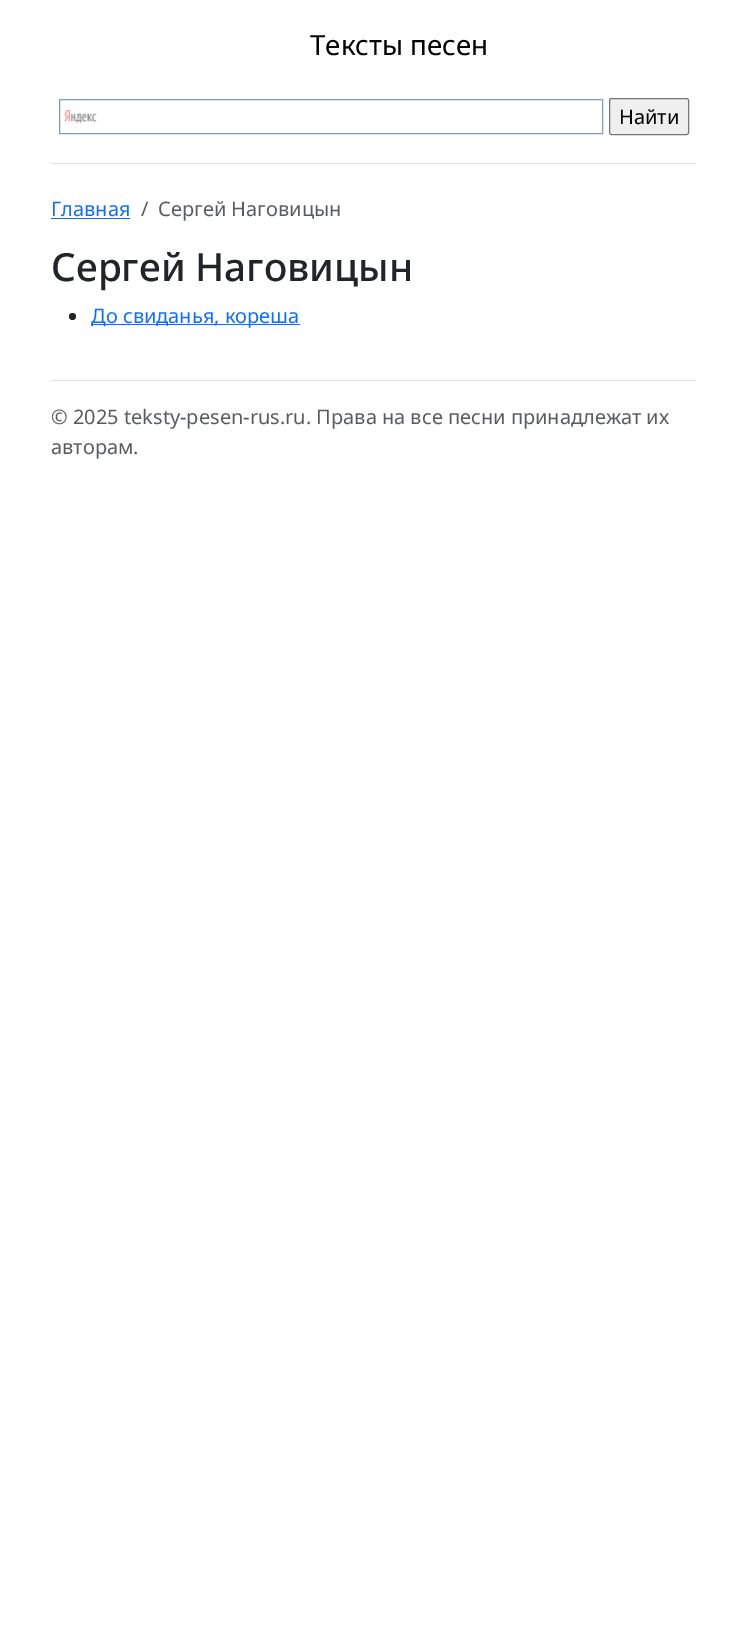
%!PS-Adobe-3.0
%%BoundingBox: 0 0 747 1642
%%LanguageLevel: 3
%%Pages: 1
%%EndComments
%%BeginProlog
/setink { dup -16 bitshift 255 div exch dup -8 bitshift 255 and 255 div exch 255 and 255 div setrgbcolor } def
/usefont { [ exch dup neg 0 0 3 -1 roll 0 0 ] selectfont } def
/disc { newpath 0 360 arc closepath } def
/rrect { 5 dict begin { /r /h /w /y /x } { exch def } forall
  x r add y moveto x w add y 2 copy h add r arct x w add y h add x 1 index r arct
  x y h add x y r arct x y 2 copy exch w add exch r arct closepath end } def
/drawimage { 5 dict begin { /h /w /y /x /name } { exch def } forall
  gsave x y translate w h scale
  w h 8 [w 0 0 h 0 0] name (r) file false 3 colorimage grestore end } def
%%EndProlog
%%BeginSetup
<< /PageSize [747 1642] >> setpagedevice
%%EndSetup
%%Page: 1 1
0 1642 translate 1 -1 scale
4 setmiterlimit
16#FFFFFF setink
0 0 747 1642 rectfill
16#DEE2E6 setink
51 163 645 1 rectfill
/NotoSans-Regular 27.75 usefont
16#000000 setink
310 55 moveto (Тексты песен) show
(img1.raw) 63 110 34 14 drawimage
16#7F9DB9 setink
59.5 99.5 543 34 rectstroke
16#EFEFEF setink
609.5 98.5 79 36 2 rrect gsave fill grestore
16#767676 setink
stroke
/NotoSans-Regular 20 usefont
16#000000 setink
619 124 moveto (Найти) show
16#0D6EFD setink
51 216 moveto (Главная) show
51 218 79 1 rectfill
16#595C5F setink
141 216 moveto (/) show
158 216 moveto (Сергей Наговицын) show
/NotoSans-Medium 38.75 usefont
16#212529 setink
51 281 moveto (Сергей Наговицын) show
72.5 316.5 3.5 disc fill
16#0D6EFD setink
91 324 209 1 rectfill
/NotoSans-Regular 20 usefont
91 323 moveto (До свиданья, кореша) show
16#DEE2E6 setink
51 380 645 1 rectfill
16#595C5F setink
51 424 moveto (© 2025 teksty-pesen-rus.ru. Права на все песни принадлежат их) show
51 454 moveto (авторам.) show
showpage
%%EOF
